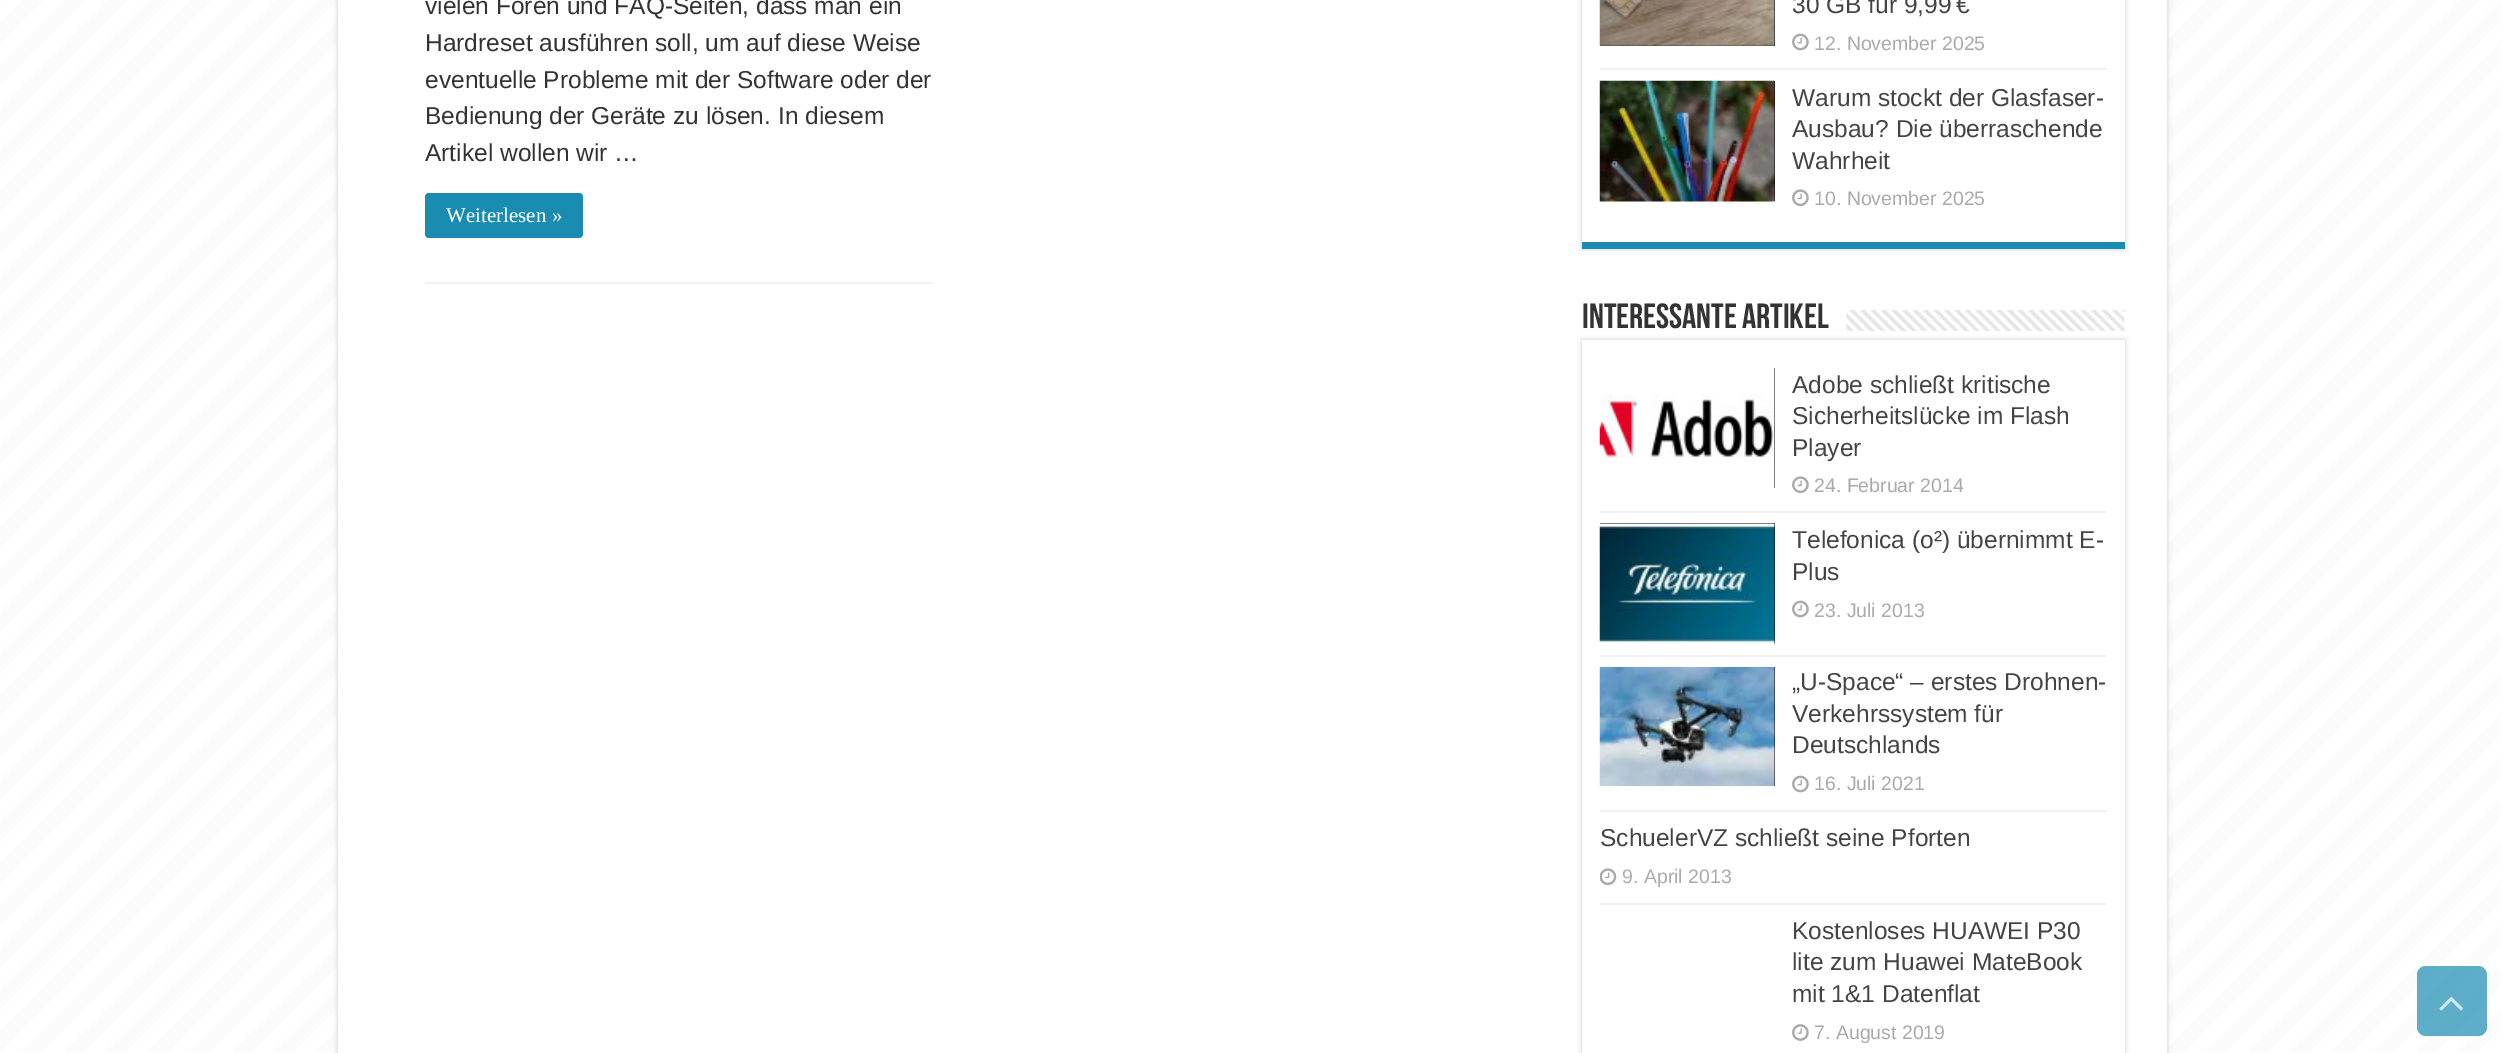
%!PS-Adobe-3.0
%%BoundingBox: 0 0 2503 1053
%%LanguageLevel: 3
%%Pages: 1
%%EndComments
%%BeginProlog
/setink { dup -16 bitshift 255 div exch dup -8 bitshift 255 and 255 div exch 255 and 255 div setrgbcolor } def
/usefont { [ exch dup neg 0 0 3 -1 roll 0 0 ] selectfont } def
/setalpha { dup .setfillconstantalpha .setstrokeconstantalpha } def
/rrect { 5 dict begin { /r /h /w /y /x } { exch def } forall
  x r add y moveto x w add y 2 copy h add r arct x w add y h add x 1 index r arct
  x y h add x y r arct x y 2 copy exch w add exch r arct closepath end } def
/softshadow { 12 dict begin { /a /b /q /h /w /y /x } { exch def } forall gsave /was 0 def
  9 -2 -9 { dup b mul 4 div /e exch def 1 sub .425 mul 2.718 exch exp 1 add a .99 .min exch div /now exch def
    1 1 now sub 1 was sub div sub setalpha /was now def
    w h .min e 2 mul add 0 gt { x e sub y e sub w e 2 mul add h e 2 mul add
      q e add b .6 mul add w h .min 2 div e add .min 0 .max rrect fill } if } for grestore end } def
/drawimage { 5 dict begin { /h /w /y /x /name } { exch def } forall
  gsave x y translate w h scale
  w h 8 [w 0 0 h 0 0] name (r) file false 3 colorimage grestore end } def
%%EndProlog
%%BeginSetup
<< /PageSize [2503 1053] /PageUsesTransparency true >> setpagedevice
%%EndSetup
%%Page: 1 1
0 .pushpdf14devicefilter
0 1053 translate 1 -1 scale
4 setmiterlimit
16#FFFFFF setink
0 0 2503 1053 rectfill
(img1.raw) 0 0 2500 1052 drawimage
16#CACACA setink
338 -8 1829 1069 0 2.5 1 softshadow
16#FFFFFF setink
338 0 1829 1053 rectfill
16#F2F2F2 setink
425 282 508 2 rectfill
/LiberationSans-Regular 24.5 usefont
16#333333 setink
[
    [(vielen Foren und FAQ-Seiten, dass man ein) 425 14]
    [(Hardreset ausführen soll, um auf diese Weise) 425 51]
    [(eventuelle Probleme mit der Software oder der) 425 88]
    [(Bedienung der Geräte zu lösen. In diesem) 425 124]
    [(Artikel wollen wir …) 425 161]
] { aload pop moveto show } forall
16#1A8CB2 setink
425 193 158 45 4 rrect fill
/LiberationSerif-Regular 21 usefont
16#FFFFFF setink
446 222 moveto (Weiterlesen ») show
16#CACACA setink
1582 -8 543 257 0 2.5 1 softshadow
[
    [1582 0 543 242 16#FFFFFF]
    [1582 242 543 7 16#1A8CB2]
    [1600 68 507 2 16#F2F2F2]
    [1600 0 175 46 16#000000]
] { aload pop setink rectfill } forall
(img2.raw) 1599 0 176 46 drawimage
/LiberationSans-Regular 24.5 usefont
16#444444 setink
1792 13 moveto (30 GB für 9,99 €) show
(img3.raw) 1792 33 17 18 drawimage
/LiberationSans-Regular 19.5 usefont
16#AAAAAA setink
1814 50 moveto (12. November 2025) show
16#000000 setink
1774 81 1 120 rectfill
(img4.raw) 1599 80 176 122 drawimage
/LiberationSans-Regular 24.5 usefont
16#444444 setink
[
    [(Warum stockt der Glasfaser-) 1792 106]
    [(Ausbau? Die überraschende) 1792 137]
    [(Wahrheit) 1792 169]
] { aload pop moveto show } forall
(img5.raw) 1792 189 17 18 drawimage
/LiberationSans-Regular 19.5 usefont
16#AAAAAA setink
1814 205 moveto (10. November 2025) show
/BebasNeue-Bold 35 usefont
16#333333 setink
1582 328 moveto (Interessante Artikel) show
(img6.raw) 1846 310 279 21 drawimage
16#CACACA setink
1582 340 543 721 0 2.5 1 softshadow
[
    [1582 340 543 713 16#FFFFFF]
    [1600 511 507 2 16#F2F2F2]
    [1774 368 1 120 16#000000]
] { aload pop setink rectfill } forall
(img7.raw) 1599 368 176 120 drawimage
/LiberationSans-Regular 24.5 usefont
16#444444 setink
[
    [(Adobe schließt kritische) 1792 393]
    [(Sicherheitslücke im Flash) 1792 424]
    [(Player) 1792 456]
] { aload pop moveto show } forall
(img5.raw) 1792 476 17 18 drawimage
/LiberationSans-Regular 19.5 usefont
16#AAAAAA setink
1814 492 moveto (24. Februar 2014) show
16#F2F2F2 setink
1600 655 507 2 rectfill
16#000000 setink
1600 523 175 121 rectfill
(img8.raw) 1599 523 176 121 drawimage
/LiberationSans-Regular 24.5 usefont
16#444444 setink
1792 548 moveto (Telefonica \(o²\) übernimmt E-) show
1792 580 moveto (Plus) show
(img3.raw) 1792 600 17 18 drawimage
/LiberationSans-Regular 19.5 usefont
16#AAAAAA setink
1814 617 moveto (23. Juli 2013) show
16#F2F2F2 setink
1600 810 507 2 rectfill
16#000000 setink
1774 667 1 119 rectfill
(img9.raw) 1599 667 176 119 drawimage
/LiberationSans-Regular 24.5 usefont
16#444444 setink
[
    [(„U-Space“ – erstes Drohnen-) 1792 690]
    [(Verkehrssystem für) 1792 722]
    [(Deutschlands) 1792 753]
] { aload pop moveto show } forall
(img3.raw) 1792 775 17 18 drawimage
/LiberationSans-Regular 19.5 usefont
16#AAAAAA setink
1814 790 moveto (16. Juli 2021) show
16#F2F2F2 setink
1600 903 507 2 rectfill
/LiberationSans-Regular 24.5 usefont
16#444444 setink
1600 846 moveto (SchuelerVZ schließt seine Pforten) show
(img10.raw) 1600 868 17 18 drawimage
/LiberationSans-Regular 19.5 usefont
16#AAAAAA setink
1622 883 moveto (9. April 2013) show
/LiberationSans-Regular 24.5 usefont
16#444444 setink
[
    [(Kostenloses HUAWEI P30) 1792 939]
    [(lite zum Huawei MateBook) 1792 970]
    [(mit 1&1 Datenflat) 1792 1002]
] { aload pop moveto show } forall
(img11.raw) 1792 1024 17 17 drawimage
/LiberationSans-Regular 19.5 usefont
16#AAAAAA setink
1814 1039 moveto (7. August 2019) show
0.7 setalpha
16#1A8CB2 setink
2417 966 70 70 9 rrect fill
1 setalpha
(img12.raw) 2439 996 24 15 drawimage
.poppdf14devicefilter showpage
%%EOF
